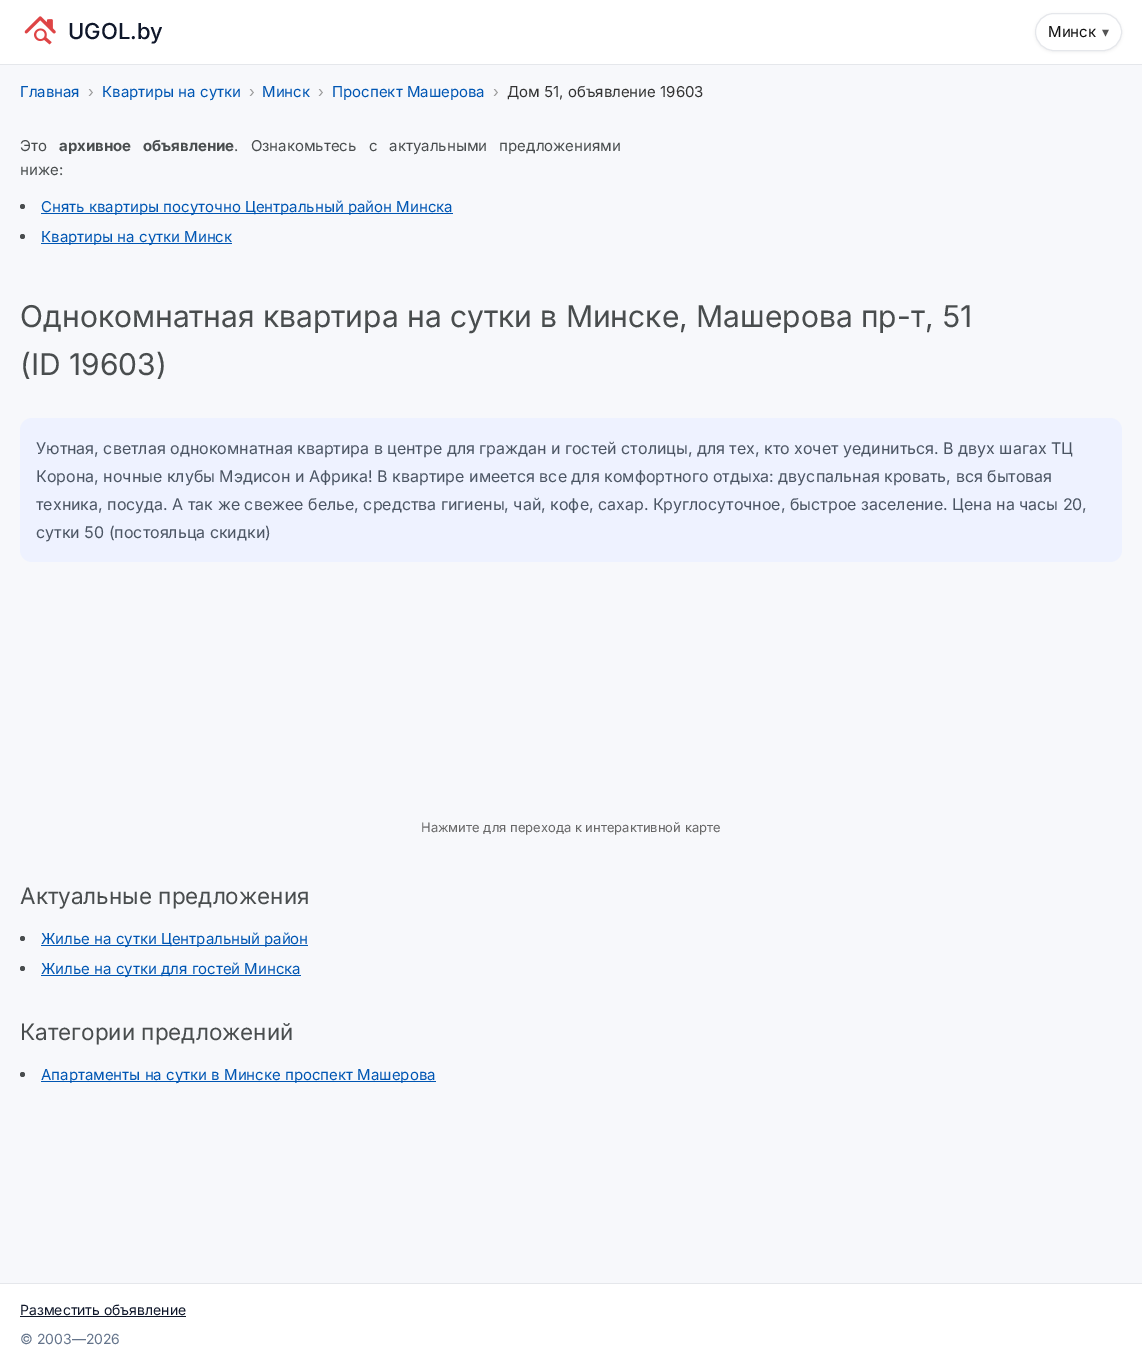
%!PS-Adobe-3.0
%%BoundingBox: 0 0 1142 1365
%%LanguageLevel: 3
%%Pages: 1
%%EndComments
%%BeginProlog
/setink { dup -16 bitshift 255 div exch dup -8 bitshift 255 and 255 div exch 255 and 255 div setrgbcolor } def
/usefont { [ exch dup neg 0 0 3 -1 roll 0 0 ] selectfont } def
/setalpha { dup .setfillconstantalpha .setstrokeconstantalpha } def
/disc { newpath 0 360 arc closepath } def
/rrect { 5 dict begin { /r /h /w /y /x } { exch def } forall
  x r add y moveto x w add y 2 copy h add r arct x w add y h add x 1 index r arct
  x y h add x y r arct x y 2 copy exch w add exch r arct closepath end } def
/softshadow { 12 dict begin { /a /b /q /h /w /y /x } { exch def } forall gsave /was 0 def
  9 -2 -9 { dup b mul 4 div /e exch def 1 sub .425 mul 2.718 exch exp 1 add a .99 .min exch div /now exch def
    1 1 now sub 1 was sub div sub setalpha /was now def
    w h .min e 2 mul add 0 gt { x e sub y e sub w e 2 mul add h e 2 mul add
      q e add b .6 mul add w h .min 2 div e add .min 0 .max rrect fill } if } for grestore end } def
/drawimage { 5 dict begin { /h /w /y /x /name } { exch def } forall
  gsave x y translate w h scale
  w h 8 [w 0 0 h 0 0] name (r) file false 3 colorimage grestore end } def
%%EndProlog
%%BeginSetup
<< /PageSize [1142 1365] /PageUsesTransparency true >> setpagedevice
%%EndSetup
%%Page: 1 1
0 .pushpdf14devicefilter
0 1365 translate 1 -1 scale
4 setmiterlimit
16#F7F8FB setink
0 0 1142 1365 rectfill
16#FFFFFF setink
0 0 1142 64 rectfill
16#E5E7EB setink
0 64 1142 1 rectfill
(img1.raw) 24 16 32 29 drawimage
/Inter-Medium 22 usefont
16#0F172A setink
68 39 moveto (UGOL.by) show
16#000000 setink
1035 14 87 38 19 1.5 0.06 softshadow
16#FFFFFF setink
1035.5 13.5 86 37 18.5 rrect gsave fill grestore
16#E5E7EB setink
stroke
/Inter-Regular 15 usefont
16#111111 setink
1048 37 moveto (Минск) show
/DejaVuSans-Regular 14 usefont
16#555555 setink
1102 37 moveto (▾) show
/Inter-Regular 15 usefont
16#0056B3 setink
20 97 moveto (Главная) show
16#999999 setink
88 97 moveto (›) show
16#0056B3 setink
102 97 moveto (Квартиры на сутки) show
16#999999 setink
249 97 moveto (›) show
16#0056B3 setink
262 97 moveto (Минск) show
16#999999 setink
318 97 moveto (›) show
16#0056B3 setink
332 97 moveto (Проспект Машерова) show
16#999999 setink
493 97 moveto (›) show
16#333333 setink
507 97 moveto (Дом 51, объявление 19603) show
16#494D4E setink
20 151 moveto (Это) show
/Inter-Bold 15 usefont
59 151 moveto 8 0 32 (архивное объявление) widthshow
/Inter-Regular 15 usefont
234 151 moveto 8 0 32 (. Ознакомьтесь с актуальными предложениями) widthshow
20 175 moveto (ниже:) show
22.5 206.5 2.5 disc fill
16#0056B3 setink
41 213 412 1 rectfill
41 212 moveto (Снять квартиры посуточно Центральный район Минска) show
16#494D4E setink
22.5 236.5 2.5 disc fill
16#0056B3 setink
41 243 191 1 rectfill
41 242 moveto (Квартиры на сутки Минск) show
/Inter-Regular 30 usefont
16#494D4E setink
20 327 moveto (Однокомнатная квартира на сутки в Минске, Машерова пр-т, 51) show
20 375 moveto (\(ID 19603\)) show
16#EEF2FF setink
20 418 1102 144 12 rrect fill
/Inter-Regular 16 usefont
16#4B5563 setink
[
    [(Уютная, светлая однокомнатная квартира в центре для граждан и гостей столицы, для тех, кто хочет уединиться. В двух шагах ТЦ) 36 454]
    [(Корона, ночные клубы Мэдисон и Африка! В квартире имеется все для комфортного отдыха: двуспальная кровать, вся бытовая) 36 482]
    [(техника, посуда. А так же свежее белье, средства гигиены, чай, кофе, сахар. Круглосуточное, быстрое заселение. Цена на часы 20,) 36 510]
    [(сутки 50 \(постояльца скидки\)) 36 538]
] { aload pop moveto show } forall
/Inter-Regular 13 usefont
16#666666 setink
421 832 moveto (Нажмите для перехода к интерактивной карте) show
/Inter-Regular 22.5 usefont
16#494D4E setink
20 904 moveto (Актуальные предложения) show
22.5 938.5 2.5 disc fill
16#0056B3 setink
41 945 267 1 rectfill
/Inter-Regular 15 usefont
41 944 moveto (Жилье на сутки Центральный район) show
16#494D4E setink
22.5 968.5 2.5 disc fill
16#0056B3 setink
41 975 260 1 rectfill
41 974 moveto (Жилье на сутки для гостей Минска) show
/Inter-Regular 22.5 usefont
16#494D4E setink
20 1040 moveto (Категории предложений) show
22.5 1074.5 2.5 disc fill
16#0056B3 setink
41 1081 395 1 rectfill
/Inter-Regular 15 usefont
41 1080 moveto (Апартаменты на сутки в Минске проспект Машерова) show
16#FFFFFF setink
0 1284 1142 81 rectfill
16#E5E7EB setink
0 1283 1142 1 rectfill
/Inter-Regular 14 usefont
16#0F172A setink
20 1315 moveto (Разместить объявление) show
20 1316 166 1 rectfill
16#64748B setink
20 1344 moveto (© 2003—2026) show
.poppdf14devicefilter showpage
%%EOF
